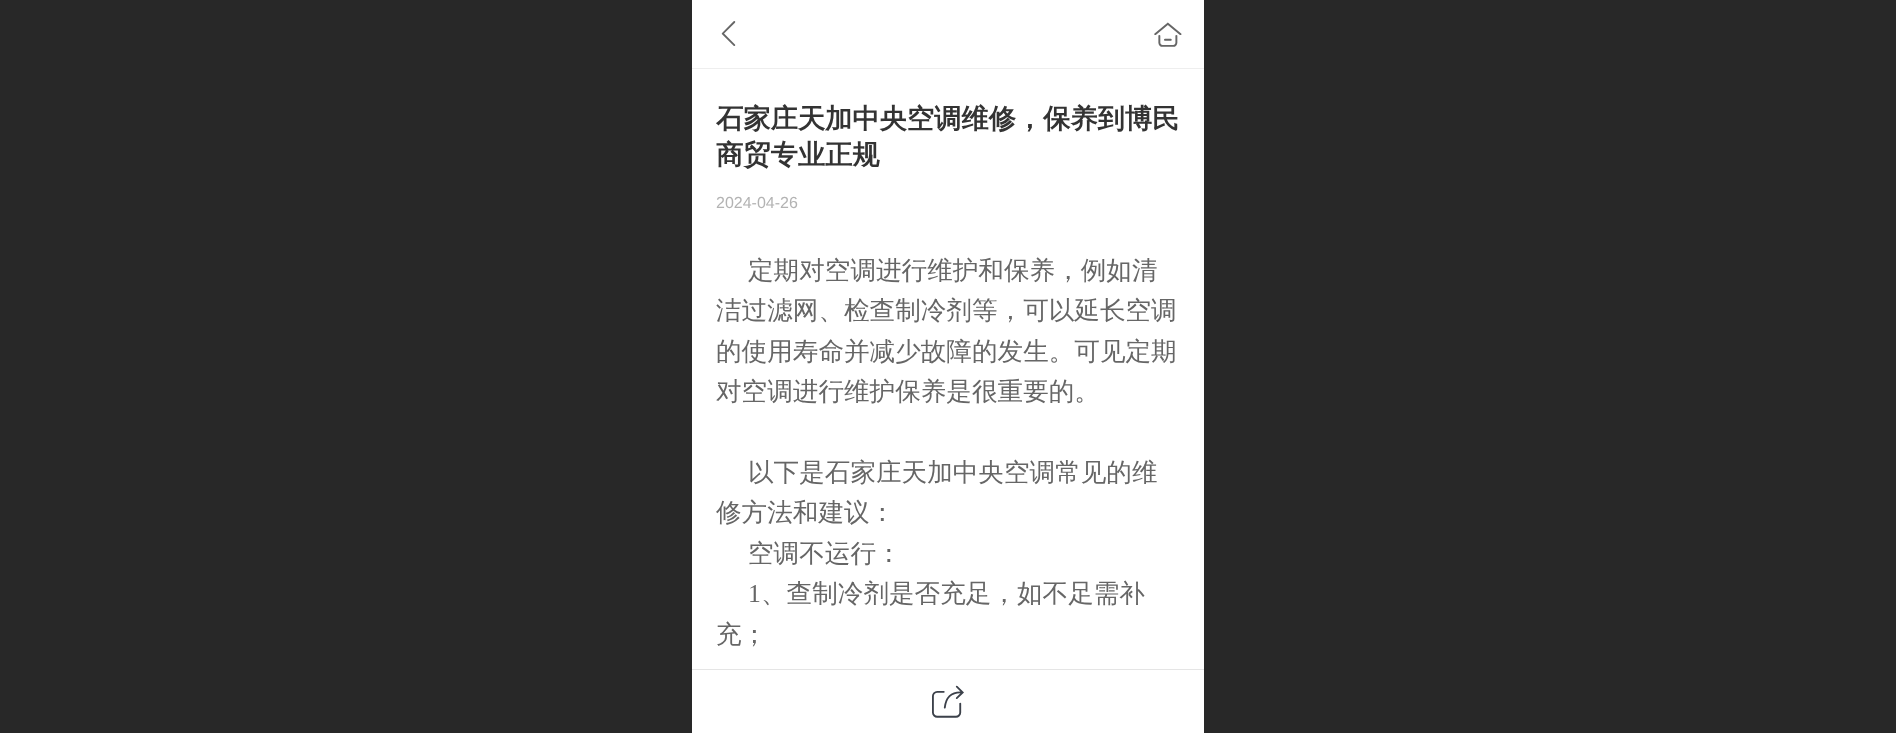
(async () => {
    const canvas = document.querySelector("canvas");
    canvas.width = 1896;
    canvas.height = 733;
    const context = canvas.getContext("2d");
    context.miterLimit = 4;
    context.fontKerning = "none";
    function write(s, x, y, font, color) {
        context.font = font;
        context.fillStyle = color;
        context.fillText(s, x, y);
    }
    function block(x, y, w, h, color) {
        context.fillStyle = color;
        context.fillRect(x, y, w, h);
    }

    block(0, 0, 1896, 733, "rgb(255, 255, 255)");
    block(0, 0, 692, 733, "rgb(40, 40, 40)");
    block(692, 68, 512, 1, "rgb(238, 238, 238)");
    write("򰊔", 716, 44, "25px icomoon", "rgb(102, 102, 102)");
    write("򰌓", 1154, 46, "27.25px icomoon", "rgb(102, 102, 102)");
    write("石家庄天加中央空调维修，保养到博民", 716, 128, "bold 27.25px WenQuanYi Zen Hei", "rgb(51, 51, 51)");
    write("商贸专业正规", 716, 164, "bold 27.25px WenQuanYi Zen Hei", "rgb(51, 51, 51)");
    write("2024-04-26", 716, 208, "16px Liberation Sans", "rgb(179, 179, 179)");
    write("定期对空调进行维护和保养，例如清", 748, 279, "500 25.6px WenQuanYi Zen Hei", "rgb(102, 102, 102)");
    write("洁过滤网、检查制冷剂等，可以延长空调", 716, 319, "500 25.6px WenQuanYi Zen Hei", "rgb(102, 102, 102)");
    write("的使用寿命并减少故障的发生。可见定期", 716, 360, "500 25.6px WenQuanYi Zen Hei", "rgb(102, 102, 102)");
    write("对空调进行维护保养是很重要的。", 716, 400, "500 25.6px WenQuanYi Zen Hei", "rgb(102, 102, 102)");
    write("以下是石家庄天加中央空调常见的维", 748, 481, "500 25.6px WenQuanYi Zen Hei", "rgb(102, 102, 102)");
    write("修方法和建议：", 716, 521, "500 25.6px WenQuanYi Zen Hei", "rgb(102, 102, 102)");
    write("空调不运行：", 748, 562, "500 25.6px WenQuanYi Zen Hei", "rgb(102, 102, 102)");
    write("1", 748, 602, "25.6px Liberation Serif", "rgb(102, 102, 102)");
    write("、查制冷剂是否充足，如不足需补", 761, 602, "500 25.6px WenQuanYi Zen Hei", "rgb(102, 102, 102)");
    write("充；", 716, 643, "500 25.6px WenQuanYi Zen Hei", "rgb(102, 102, 102)");
    block(692, 669, 512, 1, "rgb(229, 229, 229)");
    write("򰌐", 932, 715, "32px icomoon", "rgb(60, 65, 74)");
    block(1204, 0, 692, 733, "rgb(40, 40, 40)");
})();
